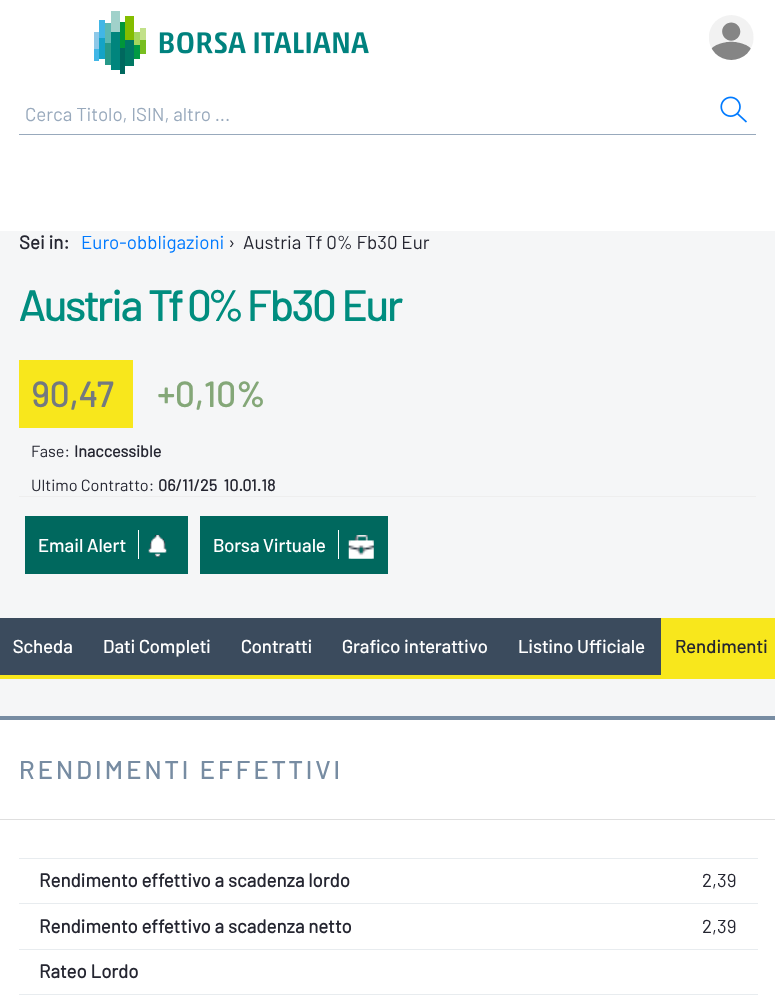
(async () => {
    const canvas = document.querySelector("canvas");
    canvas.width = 775;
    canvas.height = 1008;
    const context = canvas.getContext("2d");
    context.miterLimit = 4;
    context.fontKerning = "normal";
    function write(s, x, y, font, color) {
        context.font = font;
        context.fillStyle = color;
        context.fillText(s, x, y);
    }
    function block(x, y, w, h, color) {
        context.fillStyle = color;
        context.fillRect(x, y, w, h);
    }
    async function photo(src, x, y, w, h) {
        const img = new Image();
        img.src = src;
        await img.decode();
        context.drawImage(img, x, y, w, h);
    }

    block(0, 0, 775, 1008, "rgb(255, 255, 255)");
    await photo("media/1.png", 94, 11, 275, 63);
    await photo("media/2.png", 709, 15, 45, 45);
    block(19, 134, 737, 1, "rgb(152, 169, 188)");
    write("Cerca Titolo, ISIN, altro ...", 25, 121, "18.75px Barlow", "rgb(152, 169, 188)");
    await photo("media/3.png", 720, 96, 27, 27);
    block(0, 231, 775, 485, "rgb(245, 246, 247)");
    write("Sei in:", 19, 249, "bold 18.75px Barlow", "rgb(37, 38, 49)");
    write("Euro-obbligazioni", 81, 249, "18.75px Barlow", "rgb(0, 122, 255)");
    write("›", 228, 249, "18.75px Barlow", "rgb(37, 38, 49)");
    write("Austria Tf 0% Fb30 Eur", 243, 249, "18.75px Barlow", "rgb(37, 38, 49)");
    context.letterSpacing = "-1.9px";
    write("Austria Tf 0% Fb30 Eur", 19, 321, "500 44px Barlow", "rgb(0, 141, 127)");
    block(19, 360, 114, 68, "rgb(248, 231, 28)");
    context.letterSpacing = "0px";
    write("90,47", 31, 407, "bold 35px Barlow", "rgb(115, 121, 128)");
    write("+0,10%", 157, 407, "bold 35px Barlow", "rgb(132, 167, 120)");
    write("Fase:", 31, 457, "16.25px Barlow", "rgb(37, 38, 49)");
    write("Inaccessible", 74, 457, "bold 16.25px Barlow", "rgb(37, 38, 49)");
    write("Ultimo Contratto:", 31, 491, "16.25px Barlow", "rgb(37, 38, 49)");
    write("06/11/25  10.01.18", 158, 491, "bold 16.25px Barlow", "rgb(37, 38, 49)");
    block(19, 496, 737, 1, "rgb(238, 238, 238)");
    block(25, 516, 163, 58, "rgb(0, 104, 94)");
    write("Email Alert", 38, 552, "500 18.75px Barlow", "rgb(255, 255, 255)");
    block(138, 530, 1, 29, "rgb(255, 255, 255)");
    await photo("media/4.png", 148, 535, 19, 23);
    block(200, 516, 188, 58, "rgb(0, 104, 94)");
    write("Borsa Virtuale", 213, 552, "500 18.75px Barlow", "rgb(255, 255, 255)");
    block(338, 530, 1, 29, "rgb(255, 255, 255)");
    await photo("media/5.png", 348, 535, 26, 24);
    block(0, 618, 661, 57, "rgb(59, 75, 93)");
    block(0, 675, 775, 4, "rgb(248, 231, 28)");
    write("Scheda", 13, 653, "500 18.75px Barlow", "rgb(255, 255, 255)");
    write("Dati Completi", 103, 653, "500 18.75px Barlow", "rgb(255, 255, 255)");
    write("Contratti", 241, 653, "500 18.75px Barlow", "rgb(255, 255, 255)");
    write("Grafico interattivo", 342, 653, "500 18.75px Barlow", "rgb(255, 255, 255)");
    write("Listino Ufficiale", 518, 653, "500 18.75px Barlow", "rgb(255, 255, 255)");
    block(661, 618, 114, 57, "rgb(248, 231, 28)");
    write("Rendimenti", 675, 653, "500 18.75px Barlow", "rgb(37, 38, 49)");
    block(0, 716, 775, 4, "rgb(119, 140, 162)");
    block(0, 819, 775, 1, "rgb(223, 223, 223)");
    context.letterSpacing = "3.2px";
    write("RENDIMENTI EFFETTIVI", 19, 779, "500 25.75px Barlow", "rgb(119, 140, 162)");
    block(19, 858, 739, 1, "rgb(232, 236, 239)");
    context.letterSpacing = "0px";
    write("Rendimento effettivo a scadenza lordo", 39, 887, "bold 18.75px Barlow", "rgb(37, 38, 49)");
    write("2,39", 702, 887, "18.75px Barlow", "rgb(37, 38, 49)");
    block(19, 903, 739, 1, "rgb(232, 236, 239)");
    write("Rendimento effettivo a scadenza netto", 39, 933, "bold 18.75px Barlow", "rgb(37, 38, 49)");
    write("2,39", 702, 933, "18.75px Barlow", "rgb(37, 38, 49)");
    block(19, 949, 739, 1, "rgb(232, 236, 239)");
    write("Rateo Lordo", 39, 978, "bold 18.75px Barlow", "rgb(37, 38, 49)");
    block(19, 994, 739, 1, "rgb(232, 236, 239)");
})();
